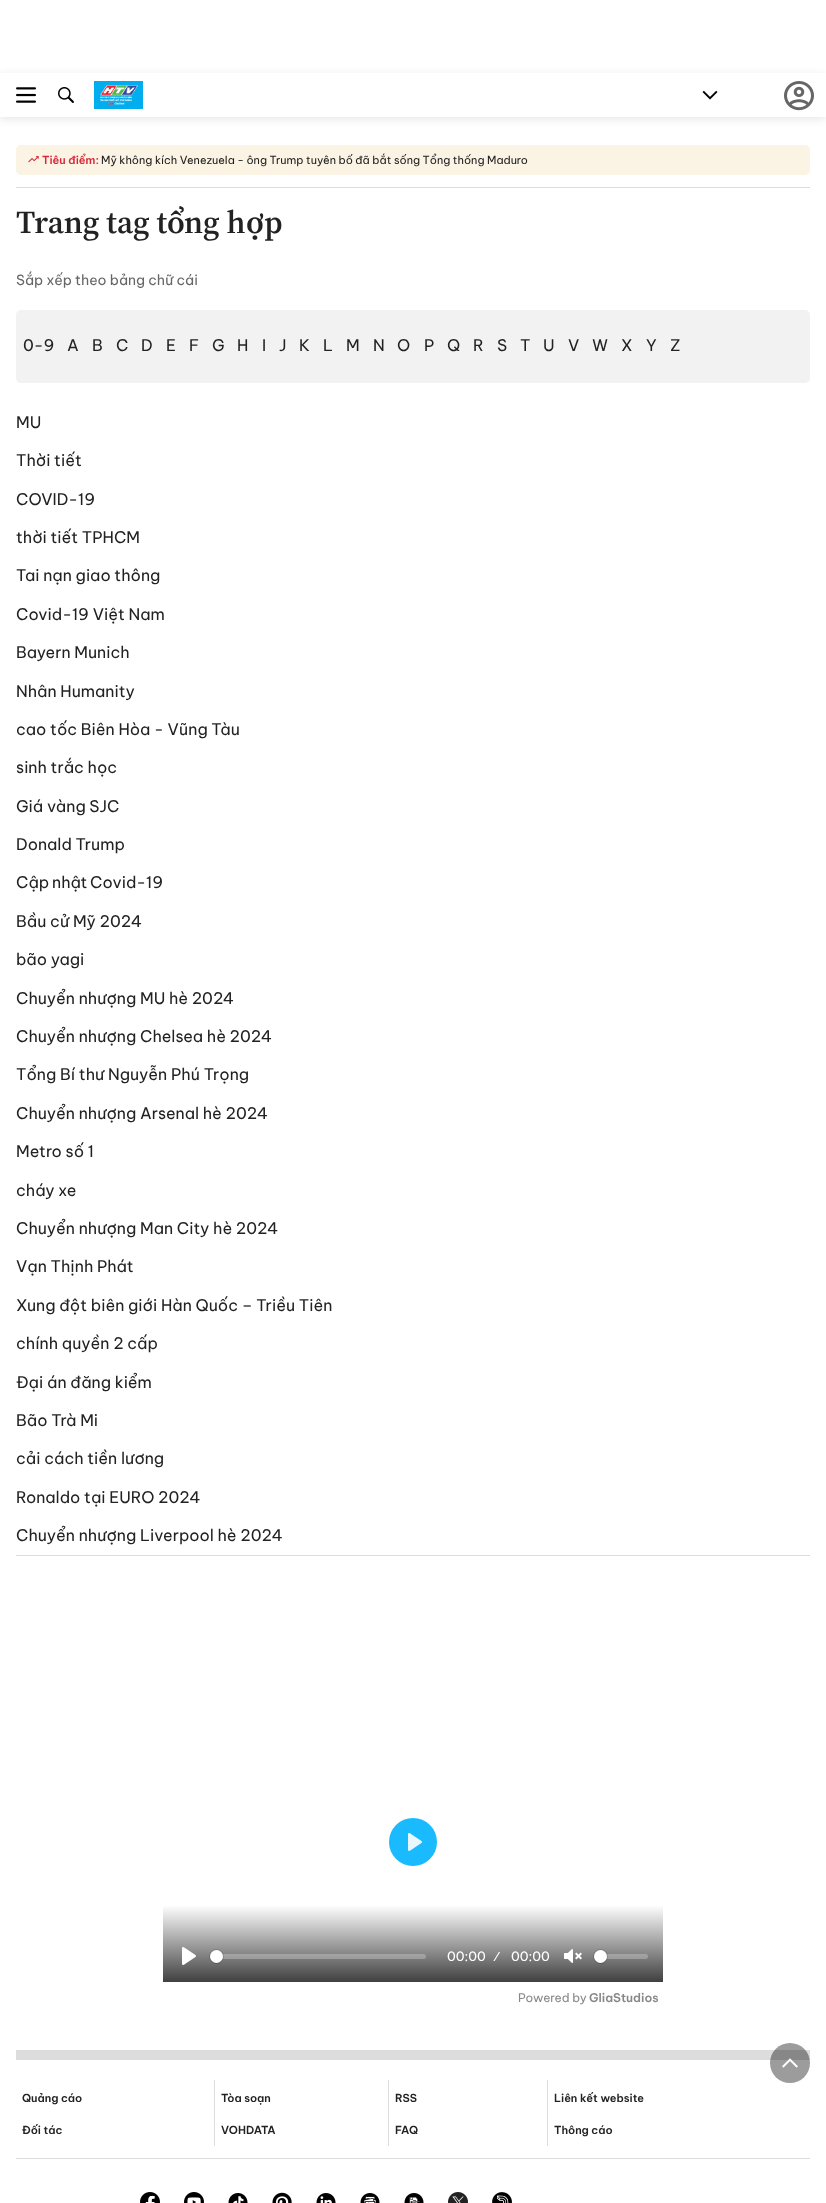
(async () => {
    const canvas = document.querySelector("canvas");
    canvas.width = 826;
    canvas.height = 2203;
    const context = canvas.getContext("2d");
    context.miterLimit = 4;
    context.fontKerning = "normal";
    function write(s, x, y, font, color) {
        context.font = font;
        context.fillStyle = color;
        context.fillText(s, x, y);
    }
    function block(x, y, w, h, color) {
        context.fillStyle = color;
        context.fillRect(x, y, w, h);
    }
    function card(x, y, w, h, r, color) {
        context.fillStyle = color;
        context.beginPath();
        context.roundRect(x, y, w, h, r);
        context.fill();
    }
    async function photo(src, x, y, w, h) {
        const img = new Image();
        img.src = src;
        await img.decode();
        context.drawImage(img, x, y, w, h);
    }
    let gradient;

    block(0, 0, 826, 2203, "rgb(255, 255, 255)");
    context.save();
    context.beginPath();
    context.moveTo(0, 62);
    context.lineTo(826, 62);
    context.lineTo(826, 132);
    context.lineTo(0, 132);
    context.closePath();
    context.moveTo(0, 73);
    context.lineTo(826, 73);
    context.lineTo(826, 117);
    context.lineTo(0, 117);
    context.closePath();
    context.clip("evenodd");
    context.fillStyle = "rgba(0, 0, 0, 0.1)";
    context.filter = "blur(4px)";
    context.beginPath();
    context.rect(0, 75, 826, 44);
    context.fill();
    context.filter = "none";
    context.restore();
    await photo("media/1.png", 16, 87, 20, 16);
    await photo("media/2.png", 58, 87, 16, 16);
    await photo("media/3.png", 94, 81, 49, 28);
    await photo("media/4.png", 702, 90, 16, 10);
    await photo("media/5.png", 784, 81, 30, 30);
    block(16, 187, 794, 1, "rgb(221, 221, 221)");
    card(16, 145, 794, 30, 5, "rgb(251, 243, 228)");
    await photo("media/6.png", 28, 156, 11, 7);
    write("Tiêu điểm:", 42, 164, "600 11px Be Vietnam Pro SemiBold", "rgb(216, 41, 58)");
    write("Mỹ không kích Venezuela - ông Trump tuyên bố đã bắt sống Tổng thống Maduro", 101, 164, "11px Be Vietnam Pro", "rgb(34, 34, 34)");
    write("Trang tag t", 16, 233, "600 32px 'Source Serif 4'", "rgb(34, 34, 34)");
    write("ổ", 167, 233, "600 32px 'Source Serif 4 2'", "rgb(34, 34, 34)");
    write("ng h", 184, 233, "600 32px 'Source Serif 4'", "rgb(34, 34, 34)");
    write("ợ", 246, 233, "600 32px 'Source Serif 4 2'", "rgb(34, 34, 34)");
    write("p", 264, 233, "600 32px 'Source Serif 4'", "rgb(34, 34, 34)");
    write("Sắp xếp theo bảng chữ cái", 16, 285, "14px Be Vietnam Pro", "rgb(102, 102, 102)");
    card(16, 310, 794, 73, 5, "rgb(242, 242, 242)");
    context.save();
    context.beginPath();
    context.roundRect(16, 310, 794, 73, 5);
    context.clip();
    block(16, 381, 44, 2, "rgb(242, 242, 242)");
    context.restore();
    write("0-9", 23, 351, "16px Be Vietnam Pro", "rgb(34, 34, 34)");
    write("A", 67, 351, "16px Be Vietnam Pro", "rgb(34, 34, 34)");
    write("B", 92, 351, "16px Be Vietnam Pro", "rgb(34, 34, 34)");
    write("C", 116, 351, "16px Be Vietnam Pro", "rgb(34, 34, 34)");
    write("D", 141, 351, "16px Be Vietnam Pro", "rgb(34, 34, 34)");
    write("E", 166, 351, "16px Be Vietnam Pro", "rgb(34, 34, 34)");
    write("F", 189, 351, "16px Be Vietnam Pro", "rgb(34, 34, 34)");
    write("G", 212, 351, "16px Be Vietnam Pro", "rgb(34, 34, 34)");
    write("H", 237, 351, "16px Be Vietnam Pro", "rgb(34, 34, 34)");
    write("I", 262, 351, "16px Be Vietnam Pro", "rgb(34, 34, 34)");
    write("J", 279, 351, "16px Be Vietnam Pro", "rgb(34, 34, 34)");
    write("K", 299, 351, "16px Be Vietnam Pro", "rgb(34, 34, 34)");
    write("L", 323, 351, "16px Be Vietnam Pro", "rgb(34, 34, 34)");
    write("M", 346, 351, "16px Be Vietnam Pro", "rgb(34, 34, 34)");
    write("N", 373, 351, "16px Be Vietnam Pro", "rgb(34, 34, 34)");
    write("O", 397, 351, "16px Be Vietnam Pro", "rgb(34, 34, 34)");
    write("P", 424, 351, "16px Be Vietnam Pro", "rgb(34, 34, 34)");
    write("Q", 447, 351, "16px Be Vietnam Pro", "rgb(34, 34, 34)");
    write("R", 473, 351, "16px Be Vietnam Pro", "rgb(34, 34, 34)");
    write("S", 497, 351, "16px Be Vietnam Pro", "rgb(34, 34, 34)");
    write("T", 520, 351, "16px Be Vietnam Pro", "rgb(34, 34, 34)");
    write("U", 543, 351, "16px Be Vietnam Pro", "rgb(34, 34, 34)");
    write("V", 568, 351, "16px Be Vietnam Pro", "rgb(34, 34, 34)");
    write("W", 592, 351, "16px Be Vietnam Pro", "rgb(34, 34, 34)");
    write("X", 621, 351, "16px Be Vietnam Pro", "rgb(34, 34, 34)");
    write("Y", 646, 351, "16px Be Vietnam Pro", "rgb(34, 34, 34)");
    write("Z", 670, 351, "16px Be Vietnam Pro", "rgb(34, 34, 34)");
    write("MU", 16, 428, "16px Be Vietnam Pro", "rgb(34, 34, 34)");
    write("Thời tiết", 16, 466, "16px Be Vietnam Pro", "rgb(34, 34, 34)");
    write("COVID-19", 16, 505, "16px Be Vietnam Pro", "rgb(34, 34, 34)");
    write("thời tiết TPHCM", 16, 543, "16px Be Vietnam Pro", "rgb(34, 34, 34)");
    write("Tai nạn giao thông", 16, 581, "16px Be Vietnam Pro", "rgb(34, 34, 34)");
    write("Covid-19 Việt Nam", 16, 620, "16px Be Vietnam Pro", "rgb(34, 34, 34)");
    write("Bayern Munich", 16, 658, "16px Be Vietnam Pro", "rgb(34, 34, 34)");
    write("Nhân Humanity", 16, 697, "16px Be Vietnam Pro", "rgb(34, 34, 34)");
    write("cao tốc Biên Hòa - Vũng Tàu", 16, 735, "16px Be Vietnam Pro", "rgb(34, 34, 34)");
    write("sinh trắc học", 16, 773, "16px Be Vietnam Pro", "rgb(34, 34, 34)");
    write("Giá vàng SJC", 16, 812, "16px Be Vietnam Pro", "rgb(34, 34, 34)");
    write("Donald Trump", 16, 850, "16px Be Vietnam Pro", "rgb(34, 34, 34)");
    context.wordSpacing = "-1px";
    write("Cập nhật Covid-19", 16, 888, "16px Be Vietnam Pro", "rgb(34, 34, 34)");
    context.wordSpacing = "0px";
    write("Bầu cử Mỹ 2024", 16, 927, "16px Be Vietnam Pro", "rgb(34, 34, 34)");
    write("bão yagi", 16, 965, "16px Be Vietnam Pro", "rgb(34, 34, 34)");
    write("Chuyển nhượng MU hè 2024", 16, 1004, "16px Be Vietnam Pro", "rgb(34, 34, 34)");
    write("Chuyển nhượng Chelsea hè 2024", 16, 1042, "16px Be Vietnam Pro", "rgb(34, 34, 34)");
    write("Tổng Bí thư Nguyễn Phú Trọng", 16, 1080, "16px Be Vietnam Pro", "rgb(34, 34, 34)");
    write("Chuyển nhượng Arsenal hè 2024", 16, 1119, "16px Be Vietnam Pro", "rgb(34, 34, 34)");
    write("Metro số 1", 16, 1157, "16px Be Vietnam Pro", "rgb(34, 34, 34)");
    write("cháy xe", 16, 1196, "16px Be Vietnam Pro", "rgb(34, 34, 34)");
    write("Chuyển nhượng Man City hè 2024", 16, 1234, "16px Be Vietnam Pro", "rgb(34, 34, 34)");
    write("Vạn Thịnh Phát", 16, 1272, "16px Be Vietnam Pro", "rgb(34, 34, 34)");
    write("Xung đột biên giới Hàn Quốc – Triều Tiên", 16, 1311, "16px Be Vietnam Pro", "rgb(34, 34, 34)");
    write("chính quyền 2 cấp", 16, 1349, "16px Be Vietnam Pro", "rgb(34, 34, 34)");
    write("Đại án đăng kiểm", 16, 1388, "16px Be Vietnam Pro", "rgb(34, 34, 34)");
    write("Bão Trà Mi", 16, 1426, "16px Be Vietnam Pro", "rgb(34, 34, 34)");
    write("cải cách tiền lương", 16, 1464, "16px Be Vietnam Pro", "rgb(34, 34, 34)");
    write("Ronaldo tại EURO 2024", 16, 1503, "16px Be Vietnam Pro", "rgb(34, 34, 34)");
    write("Chuyển nhượng Liverpool hè 2024", 16, 1541, "16px Be Vietnam Pro", "rgb(34, 34, 34)");
    block(16, 1555, 794, 1, "rgb(221, 221, 221)");
    context.fillStyle = "rgb(26, 186, 255)";
    context.beginPath();
    context.arc(413, 1842, 24, 0, Math.PI * 2);
    context.fill();
    await photo("media/7.png", 408, 1833, 14, 18);
    gradient = context.createLinearGradient(413, 1905, 413, 1982);
    gradient.addColorStop(0, "rgb(255, 255, 255)");
    gradient.addColorStop(1, "rgb(64, 64, 64)");
    context.fillStyle = gradient;
    context.fillRect(163, 1906, 500, 76);
    await photo("media/8.png", 182, 1947, 14, 18);
    card(210, 1954, 216, 5, 2.5, "rgba(255, 255, 255, 0.25)");
    context.beginPath();
    context.arc(216.5, 1956.5, 7, 0, Math.PI * 2);
    context.strokeStyle = "rgba(35, 40, 47, 0.2)";
    context.stroke();
    context.fillStyle = "rgba(35, 40, 47, 0.15)";
    context.filter = "blur(0.5px)";
    context.beginPath();
    context.roundRect(210, 1951, 13, 13, 6.5);
    context.fill();
    context.filter = "none";
    context.fillStyle = "rgb(255, 255, 255)";
    context.beginPath();
    context.arc(216.5, 1956.5, 6.5, 0, Math.PI * 2);
    context.fill();
    write("00:00", 447, 1961, "13px Be Vietnam Pro", "rgb(255, 255, 255)");
    write("⁄", 493, 1961, "13px Be Vietnam Pro", "rgb(255, 255, 255)");
    write("00:00", 511, 1961, "13px Be Vietnam Pro", "rgb(255, 255, 255)");
    await photo("media/9.png", 564, 1949, 18, 14);
    card(594, 1954, 54, 5, 2.5, "rgba(255, 255, 255, 0.25)");
    context.beginPath();
    context.arc(600.5, 1956.5, 7, 0, Math.PI * 2);
    context.stroke();
    context.fillStyle = "rgba(35, 40, 47, 0.15)";
    context.filter = "blur(0.5px)";
    context.beginPath();
    context.roundRect(594, 1951, 13, 13, 6.5);
    context.fill();
    context.filter = "none";
    context.fillStyle = "rgb(255, 255, 255)";
    context.beginPath();
    context.arc(600.5, 1956.5, 6.5, 0, Math.PI * 2);
    context.fill();
    write("Powered by", 518, 2002, "12px Be Vietnam Pro", "rgb(136, 136, 136)");
    write("GliaStudios", 589, 2002, "600 12px Be Vietnam Pro SemiBold", "rgb(136, 136, 136)");
    block(16, 2050, 794, 10, "rgb(221, 221, 221)");
    context.fillStyle = "rgba(0, 0, 0, 0.39)";
    context.beginPath();
    context.arc(790, 2063, 20, 0, Math.PI * 2);
    context.fill();
    await photo("media/10.png", 782, 2058, 16, 10);
    block(214, 2080, 1, 66, "rgb(221, 221, 221)");
    write("Quảng cáo", 22, 2102, "600 11px Be Vietnam Pro SemiBold", "rgb(34, 34, 34)");
    write("Đối tác", 22, 2134, "600 11px Be Vietnam Pro SemiBold", "rgb(34, 34, 34)");
    block(388, 2080, 1, 66, "rgb(221, 221, 221)");
    write("Tòa soạn", 221, 2102, "600 11px Be Vietnam Pro SemiBold", "rgb(34, 34, 34)");
    write("VOHDATA", 221, 2134, "600 11px Be Vietnam Pro SemiBold", "rgb(34, 34, 34)");
    block(547, 2080, 1, 66, "rgb(221, 221, 221)");
    write("RSS", 395, 2102, "600 11px Be Vietnam Pro SemiBold", "rgb(34, 34, 34)");
    write("FAQ", 395, 2134, "600 11px Be Vietnam Pro SemiBold", "rgb(34, 34, 34)");
    write("Liên kết website", 554, 2102, "600 11px Be Vietnam Pro SemiBold", "rgb(34, 34, 34)");
    write("Thông cáo", 554, 2134, "600 11px Be Vietnam Pro SemiBold", "rgb(34, 34, 34)");
    block(16, 2158, 794, 1, "rgb(221, 221, 221)");
    await photo("media/11.png", 140, 2192, 20, 11);
    await photo("media/12.png", 184, 2192, 20, 11);
    await photo("media/13.png", 228, 2193, 20, 10);
    await photo("media/14.png", 272, 2192, 20, 11);
    await photo("media/15.png", 316, 2193, 20, 10);
    await photo("media/16.png", 360, 2193, 20, 10);
    await photo("media/17.png", 404, 2193, 20, 10);
    await photo("media/18.png", 448, 2192, 20, 11);
    await photo("media/19.png", 492, 2192, 20, 11);
})();
